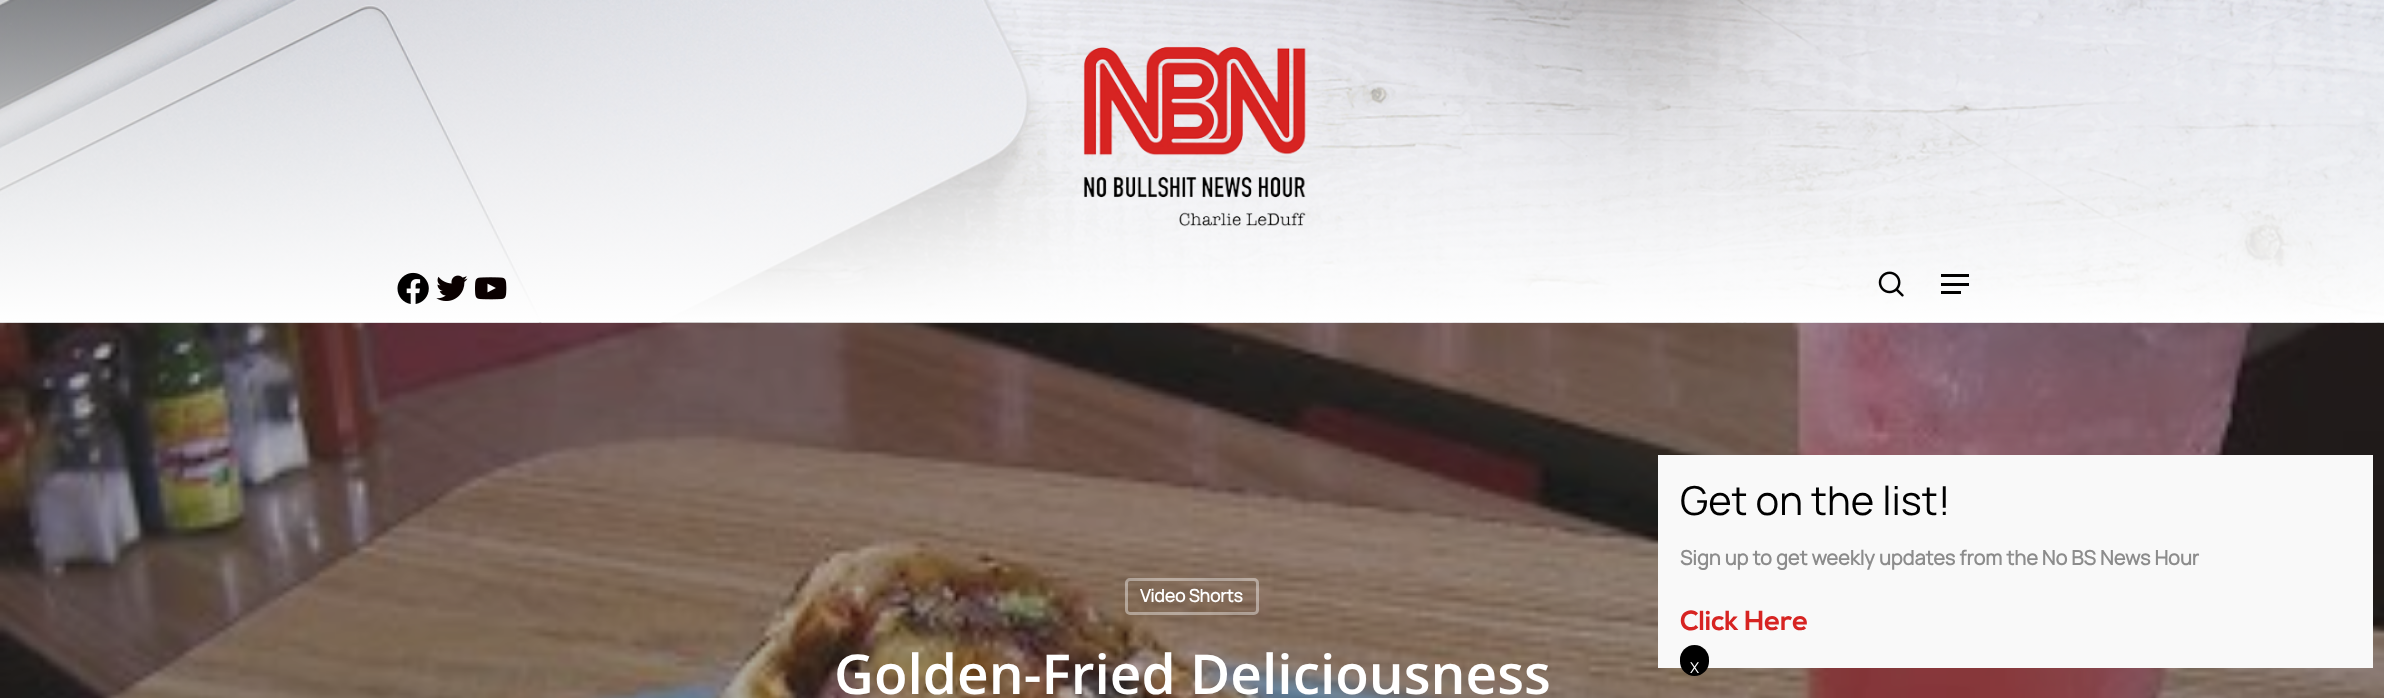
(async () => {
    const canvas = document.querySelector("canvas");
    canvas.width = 2384;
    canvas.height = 698;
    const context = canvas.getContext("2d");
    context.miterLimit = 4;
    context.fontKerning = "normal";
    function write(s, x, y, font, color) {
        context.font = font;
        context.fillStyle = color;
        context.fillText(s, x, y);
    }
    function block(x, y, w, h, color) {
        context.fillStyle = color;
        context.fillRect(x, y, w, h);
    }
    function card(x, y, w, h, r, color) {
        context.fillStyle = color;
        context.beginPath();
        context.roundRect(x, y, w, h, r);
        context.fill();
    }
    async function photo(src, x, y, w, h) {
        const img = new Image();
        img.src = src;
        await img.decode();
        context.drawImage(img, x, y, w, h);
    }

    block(0, 0, 2384, 698, "rgb(255, 255, 255)");
    await photo("media/7.png", 0, 322, 2384, 376);
    await photo("media/1.png", 0, 0, 2384, 323);
    await photo("media/2.png", 1083, 46, 223, 181);
    await photo("media/3.png", 397, 272, 32, 32);
    await photo("media/4.png", 436, 275, 32, 26);
    await photo("media/5.png", 475, 277, 32, 23);
    await photo("media/6.png", 1878, 271, 26, 26);
    block(1941, 274, 28, 3, "rgb(0, 0, 0)");
    block(1941, 291, 20, 3, "rgb(0, 0, 0)");
    block(1941, 283, 28, 3, "rgb(0, 0, 0)");
    context.beginPath();
    context.roundRect(1126.5, 579.5, 131, 34, 3.5);
    context.strokeStyle = "rgba(255, 255, 255, 0.4)";
    context.lineWidth = 3;
    context.stroke();
    write("Video Shorts", 1140, 602, "bold 17.5px Manrope", "rgb(255, 255, 255)");
    write("Golden-Fried Deliciousness", 834, 694, "600 55px Open Sans", "rgb(255, 255, 255)");
    block(1658, 455, 715, 213, "rgb(249, 249, 249)");
    write("Get on the list!", 1680, 515, "200 40px Manrope", "rgb(0, 0, 0)");
    write("Sign up to get weekly updates from the No BS News Hour", 1680, 565, "bold 20px Manrope", "rgb(140, 140, 140)");
    write("Click Here", 1680, 630, "bold 27.5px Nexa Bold", "rgb(215, 36, 34)");
    card(1680, 645, 29, 31, 14.5, "rgb(0, 0, 0)");
    write("X", 1690, 673, "200 15px Manrope", "rgb(255, 255, 255)");
})();
